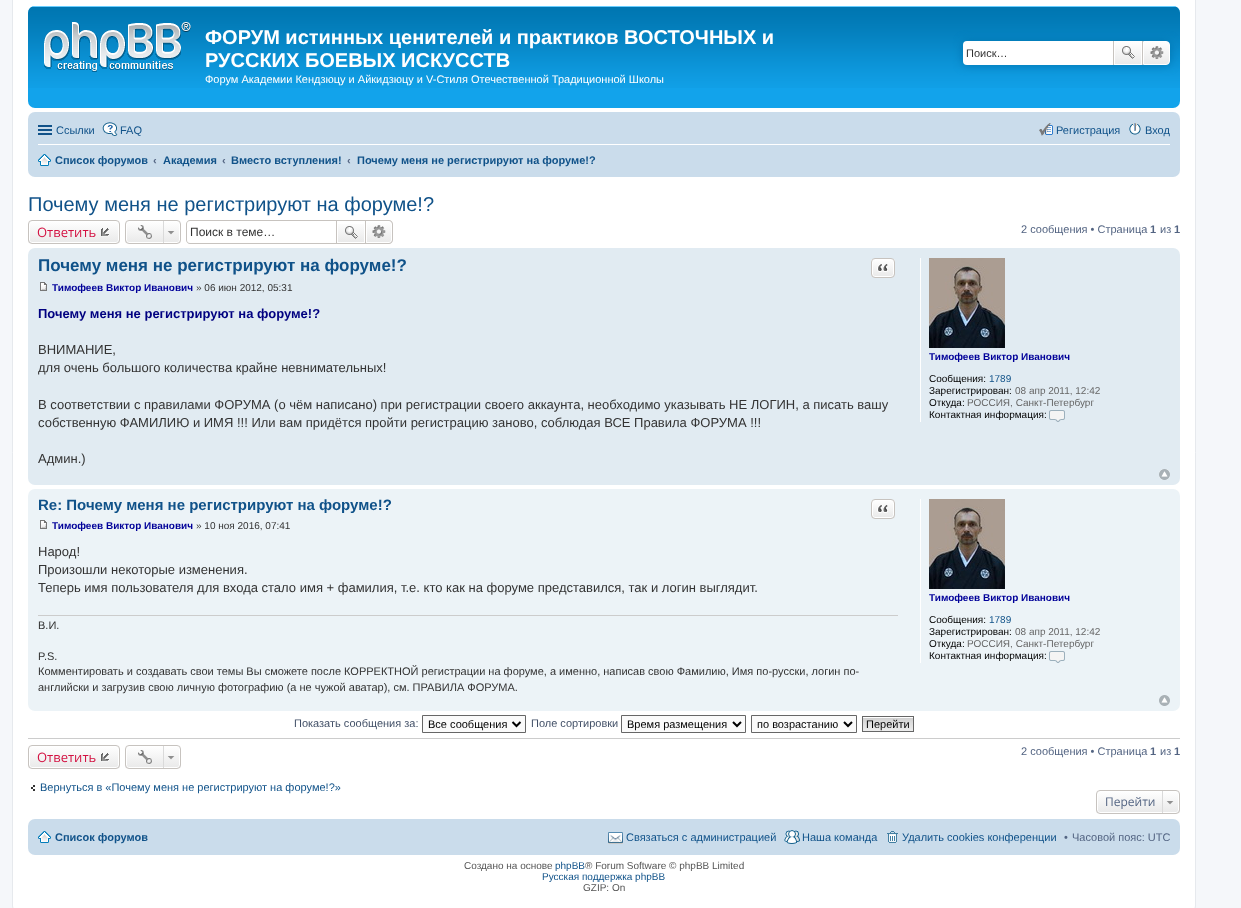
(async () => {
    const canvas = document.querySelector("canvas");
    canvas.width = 1241;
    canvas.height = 908;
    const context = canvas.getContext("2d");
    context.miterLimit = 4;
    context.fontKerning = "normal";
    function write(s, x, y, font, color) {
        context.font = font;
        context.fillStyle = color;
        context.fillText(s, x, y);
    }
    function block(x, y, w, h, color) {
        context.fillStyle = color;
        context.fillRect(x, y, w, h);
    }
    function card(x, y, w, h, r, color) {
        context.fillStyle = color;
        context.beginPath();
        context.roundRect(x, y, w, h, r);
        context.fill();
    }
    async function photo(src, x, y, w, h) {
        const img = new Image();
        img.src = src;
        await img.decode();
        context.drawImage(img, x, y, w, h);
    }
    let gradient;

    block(0, 0, 1241, 908, "rgb(245, 247, 250)");
    context.fillStyle = "rgb(255, 255, 255)";
    context.beginPath();
    context.roundRect(12.5, -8.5, 1183, 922, 7.5);
    context.fill();
    context.strokeStyle = "rgb(230, 233, 237)";
    context.stroke();
    card(28, 6, 1152, 102, 7, "rgb(18, 163, 235)");
    await photo("media/1.png", 28, 6, 1152, 82);
    await photo("media/2.png", 44, 22, 147, 50);
    write("ФОРУМ истинных ценителей и практиков ВОСТОЧНЫХ и", 205, 44, "bold 20px Liberation Sans", "rgb(255, 255, 255)");
    write("РУССКИХ БОЕВЫХ ИСКУССТВ", 205, 67, "bold 20px Liberation Sans", "rgb(255, 255, 255)");
    write("Форум Академии Кендзюцу и Айкидзюцу и V-Стиля Отечественной Традиционной Школы", 205, 83, "11px Liberation Sans", "rgb(255, 255, 255)");
    context.fillStyle = "rgb(0, 117, 176)";
    context.filter = "blur(5px)";
    context.beginPath();
    context.roundRect(963, 41, 207, 24, 4);
    context.fill();
    context.filter = "none";
    context.fillStyle = "rgb(255, 255, 255)";
    context.beginPath();
    context.roundRect(963, 41, 150, 24, [4, 0, 0, 4]);
    context.fill();
    write("Поиск…", 966, 57, "11px Liberation Sans", "rgb(51, 51, 51)");
    gradient = context.createLinearGradient(1128, 41, 1128, 65);
    gradient.addColorStop(0, "rgb(255, 255, 255)");
    gradient.addColorStop(1, "rgb(233, 233, 233)");
    context.fillStyle = gradient;
    context.fillRect(1115, 42, 26, 22);
    context.strokeStyle = "rgb(255, 255, 255)";
    context.strokeRect(1114.5, 41.5, 27, 23);
    block(1142, 41, 1, 24, "rgb(199, 195, 191)");
    block(1113, 41, 1, 24, "rgb(199, 195, 191)");
    await photo("media/3.png", 1122, 46, 13, 13);
    gradient = context.createLinearGradient(1157, 41, 1157, 65);
    gradient.addColorStop(0, "rgb(255, 255, 255)");
    gradient.addColorStop(1, "rgb(233, 233, 233)");
    context.fillStyle = gradient;
    context.beginPath();
    context.roundRect(1143.5, 41.5, 26, 23, [0, 3.5, 3.5, 0]);
    context.fill();
    context.stroke();
    await photo("media/4.png", 1150, 46, 14, 13);
    card(28, 112, 1152, 65, 7, "rgb(202, 220, 235)");
    block(38, 125, 14, 2, "rgb(16, 82, 137)");
    block(38, 129, 14, 2, "rgb(16, 82, 137)");
    block(38, 133, 14, 2, "rgb(16, 82, 137)");
    write("Ссылки", 56, 134, "11px Liberation Sans", "rgb(16, 82, 137)");
    await photo("media/5.png", 102, 122, 16, 14);
    write("FAQ", 120, 134, "11px Liberation Sans", "rgb(16, 82, 137)");
    await photo("media/6.png", 1039, 123, 14, 13);
    write("Регистрация", 1056, 134, "11px Liberation Sans", "rgb(16, 82, 137)");
    await photo("media/7.png", 1129, 123, 12, 12);
    write("Вход", 1145, 134, "11px Liberation Sans", "rgb(16, 82, 137)");
    block(38, 144, 1132, 1, "rgb(255, 255, 255)");
    await photo("media/8.png", 38, 154, 13, 12);
    write("Список форумов", 55, 164, "bold 11px Liberation Sans", "rgb(16, 82, 137)");
    write("‹", 153, 164, "bold 11px Liberation Sans", "rgb(83, 100, 130)");
    write("Академия", 163, 164, "bold 11px Liberation Sans", "rgb(16, 82, 137)");
    write("‹", 222, 164, "bold 11px Liberation Sans", "rgb(83, 100, 130)");
    write("Вместо вступления!", 231, 164, "bold 11px Liberation Sans", "rgb(16, 82, 137)");
    write("‹", 347, 164, "bold 11px Liberation Sans", "rgb(83, 100, 130)");
    write("Почему меня не регистрируют на форуме!?", 357, 164, "bold 11px Liberation Sans", "rgb(16, 82, 137)");
    write("Почему меня не регистрируют на форуме!?", 28, 211, "20px Liberation Sans", "rgb(16, 82, 137)");
    context.save();
    context.beginPath();
    context.roundRect(28, 220, 92, 24, 4);
    context.clip();
    gradient = context.createLinearGradient(74, 221, 74, 243);
    gradient.addColorStop(0, "rgb(255, 255, 255)");
    gradient.addColorStop(1, "rgb(233, 233, 233)");
    context.fillStyle = gradient;
    context.fillRect(28, 221, 92, 22);
    context.restore();
    context.beginPath();
    context.roundRect(29.5, 221.5, 89, 21, 2.5);
    context.stroke();
    context.beginPath();
    context.roundRect(28.5, 220.5, 91, 23, 3.5);
    context.strokeStyle = "rgb(199, 195, 191)";
    context.stroke();
    write("Ответить", 37, 237, "13px Open Sans", "rgb(211, 17, 65)");
    await photo("media/9.png", 100, 228, 10, 9);
    context.save();
    context.beginPath();
    context.roundRect(125, 220, 56, 24, 4);
    context.clip();
    gradient = context.createLinearGradient(153, 221, 153, 243);
    gradient.addColorStop(0, "rgb(255, 255, 255)");
    gradient.addColorStop(1, "rgb(233, 233, 233)");
    context.fillStyle = gradient;
    context.fillRect(125, 221, 56, 22);
    context.restore();
    context.beginPath();
    context.roundRect(126.5, 221.5, 53, 21, 2.5);
    context.strokeStyle = "rgb(255, 255, 255)";
    context.stroke();
    context.beginPath();
    context.roundRect(125.5, 220.5, 55, 23, 3.5);
    context.strokeStyle = "rgb(199, 195, 191)";
    context.stroke();
    await photo("media/10.png", 138, 225, 14, 15);
    await photo("media/11.png", 167, 231, 8, 4);
    block(163, 221, 1, 22, "rgb(218, 218, 218)");
    context.fillStyle = "rgb(199, 195, 191)";
    context.beginPath();
    context.moveTo(190, 220);
    context.lineTo(336, 220);
    context.lineTo(336, 244);
    context.lineTo(190, 244);
    context.bezierCurveTo(188, 244, 186, 242, 186, 240);
    context.lineTo(186, 224);
    context.bezierCurveTo(186, 222, 188, 220, 190, 220);
    context.closePath();
    context.moveTo(190, 221);
    context.lineTo(336, 221);
    context.lineTo(336, 243);
    context.lineTo(190, 243);
    context.bezierCurveTo(188, 243, 187, 242, 187, 240);
    context.lineTo(187, 224);
    context.bezierCurveTo(187, 222, 188, 221, 190, 221);
    context.closePath();
    context.fill("evenodd");
    write("Поиск в теме…", 190, 236, "12px Liberation Sans", "rgb(51, 51, 51)");
    gradient = context.createLinearGradient(351, 221, 351, 243);
    gradient.addColorStop(0, "rgb(255, 255, 255)");
    gradient.addColorStop(1, "rgb(233, 233, 233)");
    context.fillStyle = gradient;
    context.fillRect(338, 224, 26, 18);
    context.strokeRect(336.5, 220.5, 29, 23);
    await photo("media/12.png", 345, 226, 13, 13);
    gradient = context.createLinearGradient(379, 221, 379, 243);
    gradient.addColorStop(0, "rgb(255, 255, 255)");
    gradient.addColorStop(1, "rgb(233, 233, 233)");
    context.fillStyle = gradient;
    context.beginPath();
    context.roundRect(366.5, 221.5, 25, 21, [0, 2.5, 2.5, 0]);
    context.fill();
    context.strokeStyle = "rgb(255, 255, 255)";
    context.stroke();
    context.fillStyle = "rgb(199, 195, 191)";
    context.beginPath();
    context.moveTo(366, 220);
    context.lineTo(389, 220);
    context.bezierCurveTo(391, 220, 393, 222, 393, 224);
    context.lineTo(393, 240);
    context.bezierCurveTo(393, 242, 391, 244, 389, 244);
    context.lineTo(366, 244);
    context.closePath();
    context.moveTo(366, 221);
    context.lineTo(389, 221);
    context.bezierCurveTo(390.5, 221, 392, 222.5, 392, 224);
    context.lineTo(392, 240);
    context.bezierCurveTo(392, 241.5, 390.5, 243, 389, 243);
    context.lineTo(366, 243);
    context.closePath();
    context.fill("evenodd");
    await photo("media/13.png", 372, 225, 14, 13);
    write("2 сообщения • Страница", 1021, 233, "11px Liberation Sans", "rgb(83, 100, 130)");
    write("1", 1150, 233, "bold 11px Liberation Sans", "rgb(83, 100, 130)");
    write("из", 1160, 233, "11px Liberation Sans", "rgb(83, 100, 130)");
    write("1", 1174, 233, "bold 11px Liberation Sans", "rgb(83, 100, 130)");
    card(28, 248, 1152, 237, 7, "rgb(225, 235, 242)");
    write("Почему меня не регистрируют на форуме!?", 38, 271, "bold 17px Liberation Sans", "rgb(16, 82, 137)");
    context.save();
    context.beginPath();
    context.roundRect(871, 258, 24, 20, 4);
    context.clip();
    gradient = context.createLinearGradient(883, 259, 883, 277);
    gradient.addColorStop(0, "rgb(255, 255, 255)");
    gradient.addColorStop(1, "rgb(233, 233, 233)");
    context.fillStyle = gradient;
    context.fillRect(871, 259, 24, 18);
    context.restore();
    context.beginPath();
    context.roundRect(872.5, 259.5, 21, 17, 2.5);
    context.stroke();
    context.beginPath();
    context.roundRect(871.5, 258.5, 23, 19, 3.5);
    context.strokeStyle = "rgb(199, 195, 191)";
    context.stroke();
    await photo("media/14.png", 877, 264, 11, 8);
    await photo("media/15.png", 40, 282, 7, 9);
    write("Тимофеев Виктор Иванович", 52, 291, "bold 10px Liberation Sans", "rgb(0, 0, 153)");
    write("» 06 июн 2012, 05:31", 196, 291, "10px Liberation Sans", "rgb(51, 51, 51)");
    write("Почему меня не регистрируют на форуме!?", 38, 318, "bold 13px Liberation Sans", "rgb(0, 0, 128)");
    write("ВНИМАНИЕ,", 38, 354, "13px Liberation Sans", "rgb(51, 51, 51)");
    write("для очень большого количества крайне невнимательных!", 38, 372, "13px Liberation Sans", "rgb(51, 51, 51)");
    write("В соответствии с правилами ФОРУМА (о чём написано) при регистрации своего аккаунта, необходимо указывать НЕ ЛОГИН, а писать вашу", 38, 409, "13px Liberation Sans", "rgb(51, 51, 51)");
    write("собственную ФАМИЛИЮ и ИМЯ !!! Или вам придётся пройти регистрацию заново, соблюдая ВСЕ Правила ФОРУМА !!!", 38, 427, "13px Liberation Sans", "rgb(51, 51, 51)");
    write("Админ.)", 38, 463, "13px Liberation Sans", "rgb(51, 51, 51)");
    block(920, 258, 1, 164, "rgb(255, 255, 255)");
    await photo("media/16.png", 929, 258, 76, 90);
    write("Тимофеев Виктор Иванович", 929, 360, "bold 10px Liberation Sans", "rgb(0, 0, 153)");
    write("Сообщения:", 929, 382, "10px Liberation Sans", "rgb(0, 0, 0)");
    write("1789", 989, 382, "10px Liberation Sans", "rgb(16, 82, 137)");
    write("Зарегистрирован:", 929, 394, "10px Liberation Sans", "rgb(0, 0, 0)");
    write("08 апр 2011, 12:42", 1015, 394, "10px Liberation Sans", "rgb(102, 102, 102)");
    write("Откуда:", 929, 406, "10px Liberation Sans", "rgb(0, 0, 0)");
    write("РОССИЯ, Санкт-Петербург", 967, 406, "10px Liberation Sans", "rgb(102, 102, 102)");
    write("Контактная информация:", 929, 418, "10px Liberation Sans", "rgb(0, 0, 0)");
    await photo("media/17.png", 1049, 410, 16, 12);
    await photo("media/18.png", 1159, 469, 11, 11);
    card(28, 489, 1152, 222, 7, "rgb(236, 243, 247)");
    write("Re: Почему меня не регистрируют на форуме!?", 38, 510, "bold 15px Liberation Sans", "rgb(16, 82, 137)");
    context.save();
    context.beginPath();
    context.roundRect(871, 499, 24, 20, 4);
    context.clip();
    gradient = context.createLinearGradient(883, 500, 883, 518);
    gradient.addColorStop(0, "rgb(255, 255, 255)");
    gradient.addColorStop(1, "rgb(233, 233, 233)");
    context.fillStyle = gradient;
    context.fillRect(871, 500, 24, 18);
    context.restore();
    context.beginPath();
    context.roundRect(872.5, 500.5, 21, 17, 2.5);
    context.strokeStyle = "rgb(255, 255, 255)";
    context.stroke();
    context.beginPath();
    context.roundRect(871.5, 499.5, 23, 19, 3.5);
    context.strokeStyle = "rgb(199, 195, 191)";
    context.stroke();
    await photo("media/14.png", 877, 505, 11, 8);
    await photo("media/19.png", 40, 520, 7, 9);
    write("Тимофеев Виктор Иванович", 52, 529, "bold 10px Liberation Sans", "rgb(0, 0, 153)");
    write("» 10 ноя 2016, 07:41", 196, 529, "10px Liberation Sans", "rgb(51, 51, 51)");
    write("Народ!", 38, 556, "13px Liberation Sans", "rgb(51, 51, 51)");
    write("Произошли некоторые изменения.", 38, 574, "13px Liberation Sans", "rgb(51, 51, 51)");
    write("Теперь имя пользователя для входа стало имя + фамилия, т.е. кто как на форуме представился, так и логин выглядит.", 38, 592, "13px Liberation Sans", "rgb(51, 51, 51)");
    block(38, 615, 860, 1, "rgb(204, 204, 204)");
    write("В.И.", 38, 629, "11px Liberation Sans", "rgb(51, 51, 51)");
    write("P.S.", 38, 660, "11px Liberation Sans", "rgb(51, 51, 51)");
    write("Комментировать и создавать свои темы Вы сможете после КОРРЕКТНОЙ регистрации на форуме, а именно, написав свою Фамилию, Имя по-русски, логин по-", 38, 675, "11px Liberation Sans", "rgb(51, 51, 51)");
    write("английски и загрузив свою личную фотографию (а не чужой аватар), см. ПРАВИЛА ФОРУМА.", 38, 691, "11px Liberation Sans", "rgb(51, 51, 51)");
    block(920, 499, 1, 164, "rgb(255, 255, 255)");
    await photo("media/16.png", 929, 499, 76, 90);
    write("Тимофеев Виктор Иванович", 929, 601, "bold 10px Liberation Sans", "rgb(0, 0, 153)");
    write("Сообщения:", 929, 623, "10px Liberation Sans", "rgb(0, 0, 0)");
    write("1789", 989, 623, "10px Liberation Sans", "rgb(16, 82, 137)");
    write("Зарегистрирован:", 929, 635, "10px Liberation Sans", "rgb(0, 0, 0)");
    write("08 апр 2011, 12:42", 1015, 635, "10px Liberation Sans", "rgb(102, 102, 102)");
    write("Откуда:", 929, 647, "10px Liberation Sans", "rgb(0, 0, 0)");
    write("РОССИЯ, Санкт-Петербург", 967, 647, "10px Liberation Sans", "rgb(102, 102, 102)");
    write("Контактная информация:", 929, 659, "10px Liberation Sans", "rgb(0, 0, 0)");
    await photo("media/20.png", 1049, 651, 16, 12);
    await photo("media/21.png", 1159, 695, 11, 11);
    write("Показать сообщения за:", 294, 727, "11px Liberation Sans", "rgb(66, 80, 103)");
    context.fillStyle = "rgb(250, 250, 250)";
    context.beginPath();
    context.rect(422.5, 715.5, 103, 17);
    context.fill();
    context.strokeStyle = "rgb(102, 102, 102)";
    context.stroke();
    context.beginPath();
    context.moveTo(512.5, 722);
    context.lineTo(516.5, 726);
    context.lineTo(520.5, 722);
    context.strokeStyle = "rgb(0, 0, 0)";
    context.lineWidth = 2;
    context.stroke();
    write("Все сообщения", 428, 728, "11px Liberation Sans", "rgb(0, 0, 0)");
    write("Поле сортировки", 531, 727, "11px Liberation Sans", "rgb(66, 80, 103)");
    context.fillStyle = "rgb(250, 250, 250)";
    context.beginPath();
    context.rect(621.5, 715.5, 124, 17);
    context.fill();
    context.strokeStyle = "rgb(102, 102, 102)";
    context.lineWidth = 1;
    context.stroke();
    context.beginPath();
    context.moveTo(733, 722);
    context.lineTo(737, 726);
    context.lineTo(741, 722);
    context.strokeStyle = "rgb(0, 0, 0)";
    context.lineWidth = 2;
    context.stroke();
    write("Время размещения", 627, 728, "11px Liberation Sans", "rgb(0, 0, 0)");
    context.fillStyle = "rgb(250, 250, 250)";
    context.beginPath();
    context.rect(751.5, 715.5, 105, 17);
    context.fill();
    context.strokeStyle = "rgb(102, 102, 102)";
    context.lineWidth = 1;
    context.stroke();
    context.beginPath();
    context.moveTo(844, 722);
    context.lineTo(848, 726);
    context.lineTo(852, 722);
    context.strokeStyle = "rgb(0, 0, 0)";
    context.lineWidth = 2;
    context.stroke();
    write("по возрастанию", 757, 728, "11px Liberation Sans", "rgb(0, 0, 0)");
    await photo("media/22.png", 863, 717, 50, 14);
    context.strokeStyle = "rgb(102, 102, 102)";
    context.lineWidth = 1;
    context.strokeRect(862.5, 716.5, 51, 15);
    write("Перейти", 866, 728, "11px Liberation Sans", "rgb(0, 0, 0)");
    block(28, 738, 1152, 1, "rgb(204, 204, 204)");
    context.save();
    context.beginPath();
    context.roundRect(28, 745, 92, 24, 4);
    context.clip();
    gradient = context.createLinearGradient(74, 746, 74, 768);
    gradient.addColorStop(0, "rgb(255, 255, 255)");
    gradient.addColorStop(1, "rgb(233, 233, 233)");
    context.fillStyle = gradient;
    context.fillRect(28, 746, 92, 22);
    context.restore();
    context.beginPath();
    context.roundRect(29.5, 746.5, 89, 21, 2.5);
    context.strokeStyle = "rgb(255, 255, 255)";
    context.stroke();
    context.beginPath();
    context.roundRect(28.5, 745.5, 91, 23, 3.5);
    context.strokeStyle = "rgb(199, 195, 191)";
    context.stroke();
    write("Ответить", 37, 762, "13px Open Sans", "rgb(211, 17, 65)");
    await photo("media/9.png", 100, 753, 10, 9);
    context.save();
    context.beginPath();
    context.roundRect(125, 745, 56, 24, 4);
    context.clip();
    gradient = context.createLinearGradient(153, 746, 153, 768);
    gradient.addColorStop(0, "rgb(255, 255, 255)");
    gradient.addColorStop(1, "rgb(233, 233, 233)");
    context.fillStyle = gradient;
    context.fillRect(125, 746, 56, 22);
    context.restore();
    context.beginPath();
    context.roundRect(126.5, 746.5, 53, 21, 2.5);
    context.strokeStyle = "rgb(255, 255, 255)";
    context.stroke();
    context.beginPath();
    context.roundRect(125.5, 745.5, 55, 23, 3.5);
    context.strokeStyle = "rgb(199, 195, 191)";
    context.stroke();
    await photo("media/10.png", 138, 750, 14, 15);
    await photo("media/11.png", 167, 756, 8, 4);
    block(163, 746, 1, 22, "rgb(218, 218, 218)");
    write("2 сообщения • Страница", 1021, 755, "11px Liberation Sans", "rgb(83, 100, 130)");
    write("1", 1150, 755, "bold 11px Liberation Sans", "rgb(83, 100, 130)");
    write("из", 1160, 755, "11px Liberation Sans", "rgb(83, 100, 130)");
    write("1", 1174, 755, "bold 11px Liberation Sans", "rgb(83, 100, 130)");
    await photo("media/23.png", 31, 785, 4, 6);
    write("Вернуться в «Почему меня не регистрируют на форуме!?»", 40, 791, "11px Liberation Sans", "rgb(16, 82, 137)");
    context.save();
    context.beginPath();
    context.roundRect(1096, 790, 84, 24, 4);
    context.clip();
    gradient = context.createLinearGradient(1138, 791, 1138, 813);
    gradient.addColorStop(0, "rgb(255, 255, 255)");
    gradient.addColorStop(1, "rgb(233, 233, 233)");
    context.fillStyle = gradient;
    context.fillRect(1096, 791, 84, 22);
    context.restore();
    context.beginPath();
    context.roundRect(1097.5, 791.5, 81, 21, 2.5);
    context.strokeStyle = "rgb(255, 255, 255)";
    context.stroke();
    context.beginPath();
    context.roundRect(1096.5, 790.5, 83, 23, 3.5);
    context.strokeStyle = "rgb(199, 195, 191)";
    context.stroke();
    write("Перейти", 1105, 806, "12px Open Sans", "rgb(83, 100, 130)");
    await photo("media/11.png", 1166, 801, 8, 4);
    block(1162, 791, 1, 22, "rgb(218, 218, 218)");
    card(28, 819, 1152, 36, 7, "rgb(202, 220, 235)");
    await photo("media/8.png", 38, 831, 13, 12);
    write("Список форумов", 55, 841, "bold 11px Liberation Sans", "rgb(16, 82, 137)");
    await photo("media/24.png", 608, 832, 15, 12);
    write("Связаться с администрацией", 626, 841, "11px Liberation Sans", "rgb(16, 82, 137)");
    await photo("media/25.png", 784, 830, 16, 14);
    write("Наша команда", 802, 841, "11px Liberation Sans", "rgb(16, 82, 137)");
    await photo("media/26.png", 887, 831, 11, 12);
    write("Удалить cookies конференции", 902, 841, "11px Liberation Sans", "rgb(16, 82, 137)");
    write("•", 1064, 841, "11px Liberation Sans", "rgb(83, 100, 130)");
    write("Часовой пояс: UTC", 1072, 841, "11px Liberation Sans", "rgb(83, 100, 130)");
    write("Создано на основе", 464, 869, "10px Liberation Sans", "rgb(85, 85, 85)");
    write("phpBB", 555, 869, "10px Liberation Sans", "rgb(16, 82, 137)");
    write("® Forum Software © phpBB Limited", 585, 869, "10px Liberation Sans", "rgb(85, 85, 85)");
    write("Русская поддержка phpBB", 542, 880, "10px Liberation Sans", "rgb(16, 82, 137)");
    write("GZIP: On", 583, 891, "10px Liberation Sans", "rgb(85, 85, 85)");
})();
